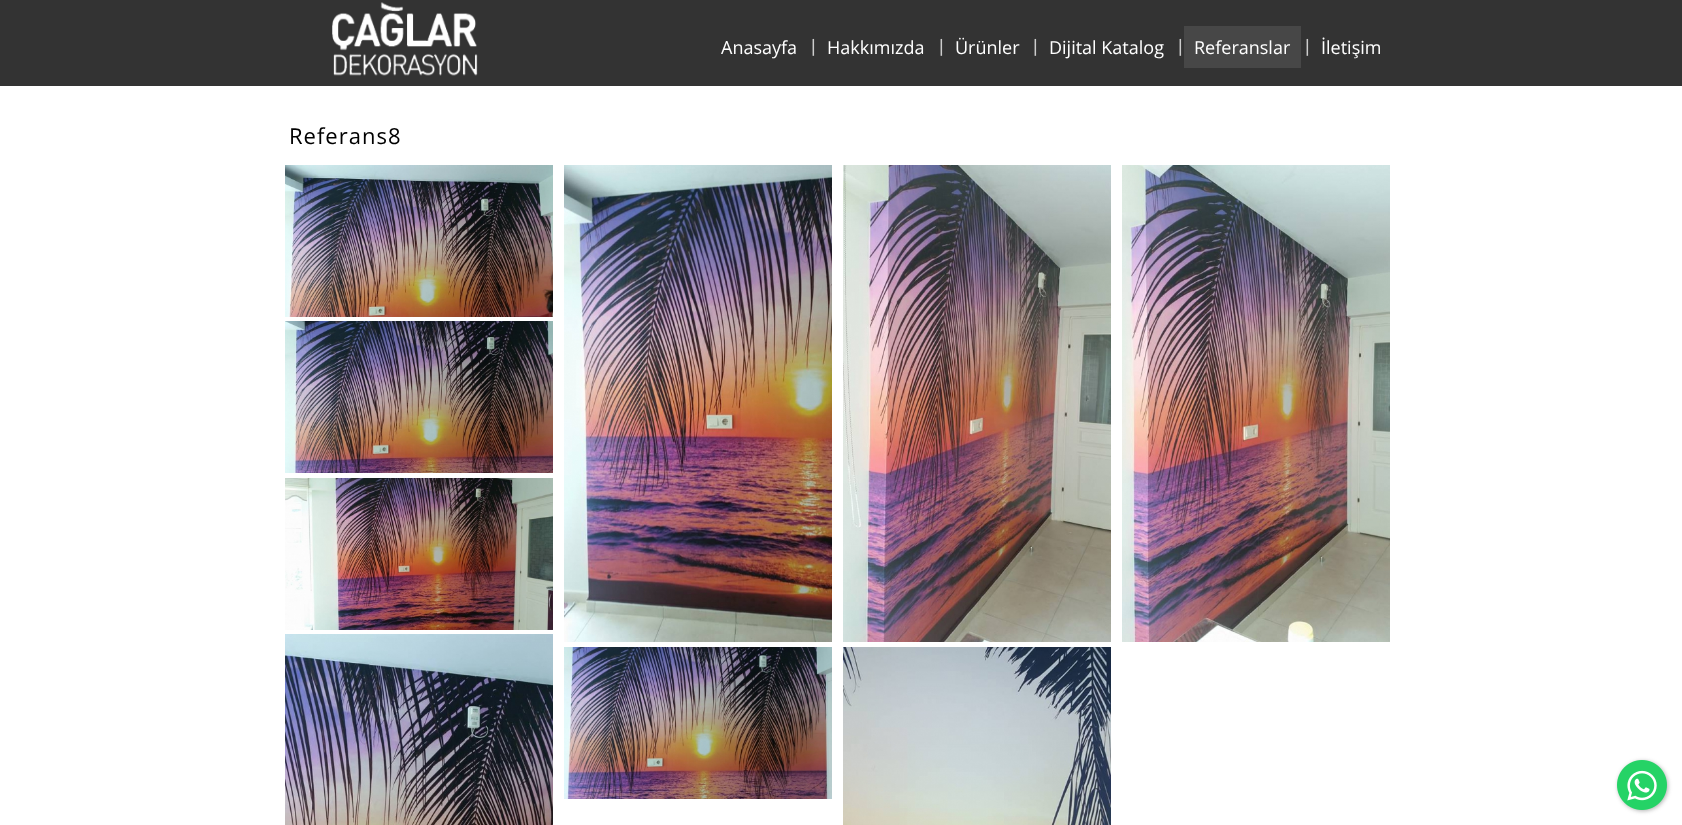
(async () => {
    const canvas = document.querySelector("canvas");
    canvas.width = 1682;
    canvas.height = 825;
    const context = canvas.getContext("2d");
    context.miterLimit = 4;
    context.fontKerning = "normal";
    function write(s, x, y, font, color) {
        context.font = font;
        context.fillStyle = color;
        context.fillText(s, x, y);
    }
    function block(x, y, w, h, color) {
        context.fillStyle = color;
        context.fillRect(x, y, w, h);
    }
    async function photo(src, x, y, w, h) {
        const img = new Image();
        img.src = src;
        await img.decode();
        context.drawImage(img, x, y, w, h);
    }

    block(0, 0, 1682, 825, "rgb(255, 255, 255)");
    block(0, 0, 1682, 86, "rgb(51, 51, 51)");
    await photo("media/1.png", 332, 2, 146, 74);
    write("Anasayfa", 721, 54, "18px Open Sans", "rgb(255, 255, 255)");
    write("|", 811, 52, "18px Liberation Sans", "rgb(204, 204, 204)");
    write("Hakkımızda", 827, 54, "18px Open Sans", "rgb(255, 255, 255)");
    write("|", 939, 52, "18px Liberation Sans", "rgb(204, 204, 204)");
    write("Ürünler", 955, 54, "18px Open Sans", "rgb(255, 255, 255)");
    write("|", 1033, 52, "18px Liberation Sans", "rgb(204, 204, 204)");
    write("Dijital Katalog", 1049, 54, "18px Open Sans", "rgb(255, 255, 255)");
    block(1184, 26, 117, 42, "rgb(71, 71, 71)");
    write("|", 1178, 52, "18px Liberation Sans", "rgb(204, 204, 204)");
    write("Referanslar", 1194, 54, "18px Open Sans", "rgb(255, 255, 255)");
    write("|", 1305, 52, "18px Liberation Sans", "rgb(204, 204, 204)");
    write("İletişim", 1321, 54, "18px Open Sans", "rgb(255, 255, 255)");
    context.letterSpacing = "1px";
    write("Referans8", 289, 144, "22px Open Sans", "rgb(0, 0, 0)");
    await photo("media/2.png", 285, 165, 268, 152);
    await photo("media/3.png", 564, 165, 268, 477);
    await photo("media/4.png", 843, 165, 268, 477);
    await photo("media/5.png", 1122, 165, 268, 477);
    await photo("media/6.png", 285, 321, 268, 152);
    await photo("media/7.png", 285, 478, 268, 152);
    await photo("media/8.png", 285, 634, 268, 191);
    await photo("media/9.png", 564, 647, 268, 152);
    await photo("media/10.png", 843, 647, 268, 178);
    context.fillStyle = "rgba(60, 60, 60, 0.4)";
    context.filter = "blur(2px)";
    context.beginPath();
    context.roundRect(1618, 761, 50, 50, 25);
    context.fill();
    context.filter = "none";
    await photo("media/11.png", 1617, 760, 50, 50);
})();
